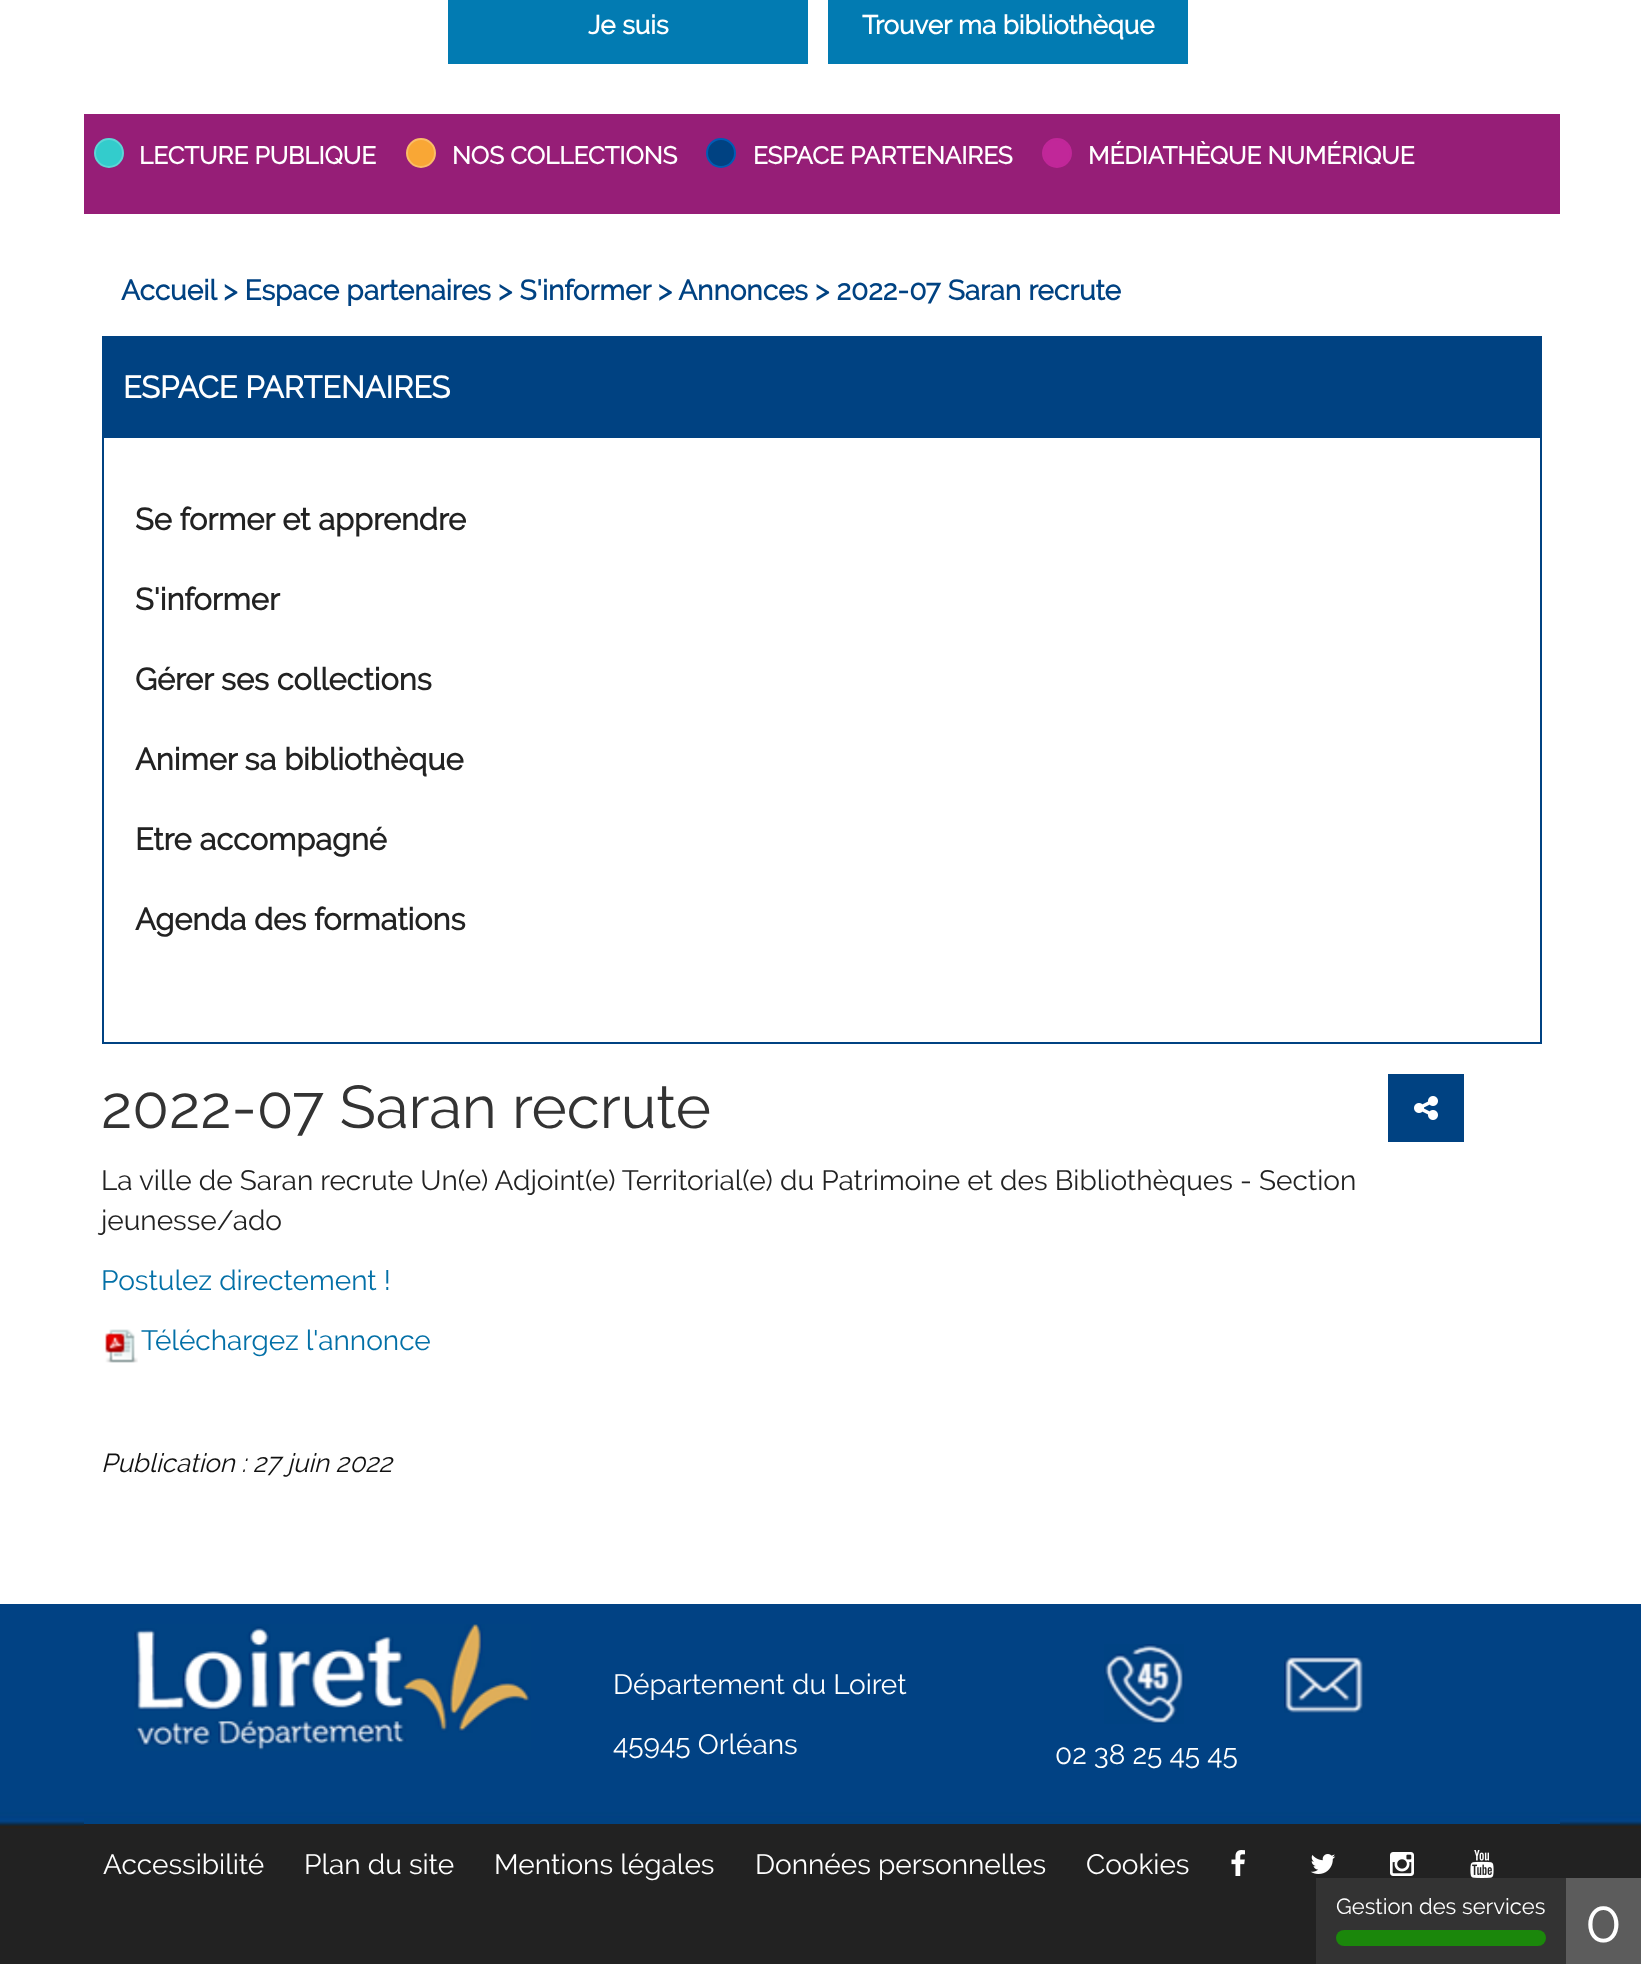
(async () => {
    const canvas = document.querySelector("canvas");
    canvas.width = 1641;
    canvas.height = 1964;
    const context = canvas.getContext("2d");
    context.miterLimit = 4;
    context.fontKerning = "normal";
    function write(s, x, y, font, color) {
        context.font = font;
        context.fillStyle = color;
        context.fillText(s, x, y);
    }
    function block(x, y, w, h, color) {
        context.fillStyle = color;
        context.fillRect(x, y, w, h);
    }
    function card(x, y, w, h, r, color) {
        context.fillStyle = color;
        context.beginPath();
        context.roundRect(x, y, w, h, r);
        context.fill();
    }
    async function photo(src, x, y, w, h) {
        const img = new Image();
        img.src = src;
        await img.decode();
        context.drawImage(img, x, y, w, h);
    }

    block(0, 0, 1641, 1964, "rgb(255, 255, 255)");
    block(448, 0, 360, 64, "rgb(2, 123, 178)");
    write("Je suis", 588, 34, "bold 26px Raleway", "rgb(255, 255, 255)");
    block(828, 0, 360, 64, "rgb(2, 123, 178)");
    write("Trouver ma bibliothèque", 862, 34, "bold 26px Raleway", "rgb(255, 255, 255)");
    block(84, 114, 1476, 100, "rgb(150, 30, 119)");
    context.fillStyle = "rgb(51, 204, 204)";
    context.beginPath();
    context.arc(109, 153, 14, 0, Math.PI * 2);
    context.fill();
    context.strokeStyle = "rgb(92, 214, 214)";
    context.lineWidth = 2;
    context.stroke();
    write("LECTURE PUBLIQUE", 139, 164, "bold 24.4px Raleway", "rgb(255, 255, 255)");
    context.fillStyle = "rgb(249, 167, 53)";
    context.beginPath();
    context.arc(421, 153, 14, 0, Math.PI * 2);
    context.fill();
    context.strokeStyle = "rgb(250, 189, 103)";
    context.stroke();
    write("NOS COLLECTIONS", 452, 164, "bold 24.4px Raleway", "rgb(255, 255, 255)");
    context.fillStyle = "rgb(0, 66, 130)";
    context.beginPath();
    context.arc(721, 153, 14, 0, Math.PI * 2);
    context.fill();
    context.strokeStyle = "rgb(0, 92, 181)";
    context.stroke();
    write("ESPACE PARTENAIRES", 753, 164, "bold 24.4px Raleway", "rgb(255, 255, 255)");
    context.fillStyle = "rgb(193, 39, 153)";
    context.beginPath();
    context.arc(1057, 153, 14, 0, Math.PI * 2);
    context.fill();
    context.strokeStyle = "rgb(193, 39, 153)";
    context.stroke();
    write("MÉDIATHÈQUE NUMÉRIQUE", 1088, 164, "bold 24.4px Raleway", "rgb(255, 255, 255)");
    write("Accueil > Espace partenaires > S'informer > Annonces > 2022-07 Saran recrute", 121, 300, "bold 28px Raleway", "rgb(0, 66, 130)");
    context.strokeStyle = "rgb(0, 66, 130)";
    context.strokeRect(103, 337, 1438, 706);
    block(104, 338, 1436, 100, "rgb(0, 66, 130)");
    write("ESPACE PARTENAIRES", 123, 398, "bold 30.75px Raleway", "rgb(255, 255, 255)");
    write("Se former et apprendre", 135, 530, "bold 30.75px Raleway", "rgb(34, 34, 34)");
    write("S'informer", 135, 610, "bold 30.75px Raleway", "rgb(34, 34, 34)");
    write("Gérer ses collections", 135, 690, "bold 30.75px Raleway", "rgb(34, 34, 34)");
    write("Animer sa bibliothèque", 135, 770, "bold 30.75px Raleway", "rgb(34, 34, 34)");
    write("Etre accompagné", 135, 850, "bold 30.75px Raleway", "rgb(34, 34, 34)");
    write("Agenda des formations", 135, 930, "bold 30.75px Raleway", "rgb(34, 34, 34)");
    write("2022-07 Saran recrute", 101, 1128, "60px Raleway", "rgb(51, 51, 51)");
    block(1388, 1074, 76, 68, "rgb(0, 66, 130)");
    await photo("media/1.png", 1414, 1096, 24, 24);
    write("La ville de Saran recrute Un(e) Adjoint(e) Territorial(e) du Patrimoine et des Bibliothèques - Section", 101, 1190, "28px Raleway", "rgb(34, 34, 34)");
    write("jeunesse/ado", 101, 1230, "28px Raleway", "rgb(34, 34, 34)");
    write("Postulez directement !", 101, 1290, "28px Raleway", "rgb(3, 112, 167)");
    await photo("media/2.png", 105, 1329, 33, 34);
    write("Téléchargez l'annonce", 141, 1350, "28px Raleway", "rgb(3, 112, 167)");
    write("Publication : 27 juin 2022", 101, 1472, "italic 26px Raleway", "rgb(17, 17, 17)");
    await photo("media/3.png", 0, 1604, 1641, 360);
    block(84, 1818, 1476, 6, "rgb(0, 66, 130)");
    await photo("media/4.png", 134, 1624, 397, 127);
    write("Département du Loiret", 613, 1694, "28px Raleway", "rgb(255, 255, 255)");
    write("45945 Orléans", 613, 1754, "28px Raleway", "rgb(255, 255, 255)");
    await photo("media/5.png", 1104, 1644, 80, 80);
    await photo("media/6.png", 1284, 1656, 79, 57);
    write("02 38 25 45 45", 1055, 1764, "28px Raleway", "rgb(255, 255, 255)");
    block(84, 1824, 1476, 5, "rgb(34, 34, 34)");
    write("Accessibilité", 103, 1874, "28px Raleway", "rgb(255, 255, 255)");
    write("Plan du site", 304, 1874, "28px Raleway", "rgb(255, 255, 255)");
    write("Mentions légales", 494, 1874, "28px Raleway", "rgb(255, 255, 255)");
    write("Données personnelles", 755, 1874, "28px Raleway", "rgb(255, 255, 255)");
    write("Cookies", 1086, 1874, "28px Raleway", "rgb(255, 255, 255)");
    await photo("media/7.png", 1231, 1850, 14, 26);
    await photo("media/8.png", 1310, 1854, 26, 20);
    await photo("media/9.png", 1390, 1852, 24, 24);
    await photo("media/10.png", 1470, 1850, 24, 28);
    block(1316, 1878, 250, 86, "rgb(51, 51, 51)");
    write("Gestion des services", 1336, 1914, "22px Raleway", "rgb(255, 255, 255)");
    card(1336, 1930, 210, 16, 8, "rgb(27, 135, 11)");
    block(1566, 1878, 75, 86, "rgb(92, 92, 92)");
    write("0", 1585, 1942, "60px Raleway", "rgb(255, 255, 255)");
})();
